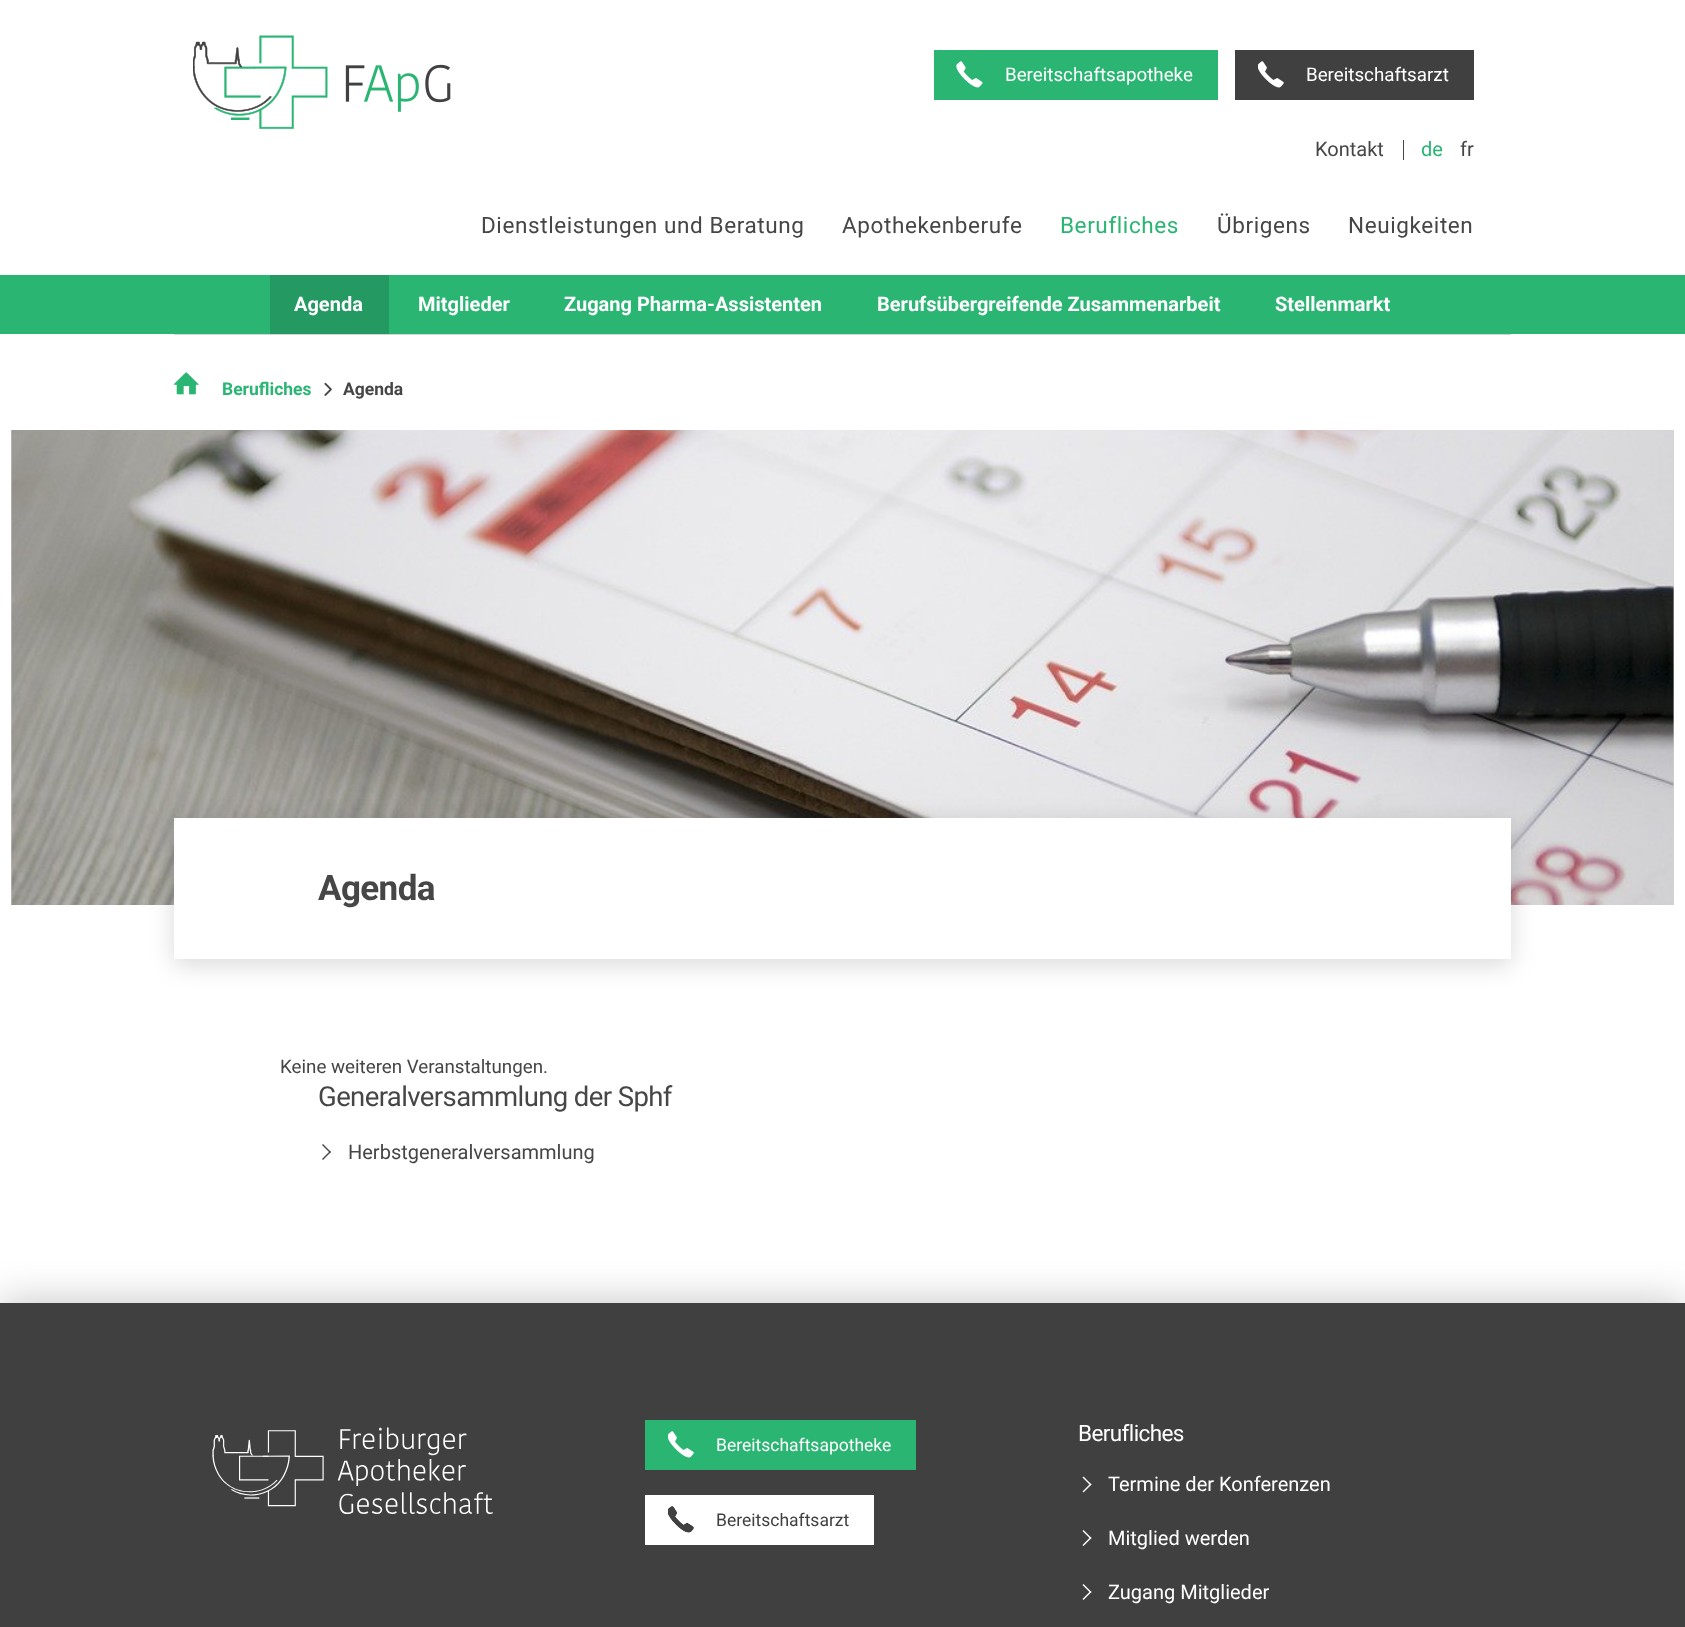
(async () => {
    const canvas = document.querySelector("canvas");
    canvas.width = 1685;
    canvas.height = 1627;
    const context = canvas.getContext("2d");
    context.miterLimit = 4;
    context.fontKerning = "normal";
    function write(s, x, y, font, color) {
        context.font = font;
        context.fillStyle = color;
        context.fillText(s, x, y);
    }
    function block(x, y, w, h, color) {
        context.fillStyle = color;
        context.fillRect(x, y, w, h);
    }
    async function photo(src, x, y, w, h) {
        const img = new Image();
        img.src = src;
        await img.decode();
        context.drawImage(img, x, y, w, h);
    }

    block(0, 0, 1685, 1627, "rgb(255, 255, 255)");
    await photo("media/1.png", 193, 35, 258, 94);
    block(934, 50, 284, 50, "rgb(42, 181, 115)");
    await photo("media/2.png", 956, 61, 27, 27);
    write("Bereitschaftsapotheke", 1005, 81, "18.75px Roboto", "rgb(255, 255, 255)");
    block(1235, 50, 239, 50, "rgb(64, 64, 65)");
    await photo("media/3.png", 1258, 61, 26, 27);
    write("Bereitschaftsarzt", 1306, 81, "18.75px Roboto", "rgb(255, 255, 255)");
    write("Kontakt", 1315, 156, "20px Roboto", "rgb(70, 70, 70)");
    block(1403, 140, 1, 20, "rgb(70, 70, 70)");
    write("de", 1421, 156, "20px Roboto", "rgb(42, 181, 115)");
    write("fr", 1460, 156, "20px Roboto", "rgb(70, 70, 70)");
    context.letterSpacing = "0.6px";
    write("Dienstleistungen und Beratung", 481, 233, "22.5px Roboto", "rgb(70, 70, 70)");
    write("Apothekenberufe", 842, 233, "22.5px Roboto", "rgb(70, 70, 70)");
    write("Berufliches", 1060, 233, "22.5px Roboto", "rgb(42, 181, 115)");
    write("Übrigens", 1217, 233, "22.5px Roboto", "rgb(70, 70, 70)");
    write("Neuigkeiten", 1348, 233, "22.5px Roboto", "rgb(70, 70, 70)");
    block(0, 275, 1685, 59, "rgb(42, 181, 115)");
    block(270, 275, 119, 59, "rgb(36, 154, 98)");
    context.letterSpacing = "0px";
    write("Agenda", 294, 311, "bold 20px Roboto", "rgb(255, 255, 255)");
    write("Mitglieder", 418, 311, "bold 20px Roboto", "rgb(255, 255, 255)");
    write("Zugang Pharma-Assistenten", 564, 311, "bold 20px Roboto", "rgb(255, 255, 255)");
    write("Berufsübergreifende Zusammenarbeit", 877, 311, "bold 20px Roboto", "rgb(255, 255, 255)");
    write("Stellenmarkt", 1275, 311, "bold 20px Roboto", "rgb(255, 255, 255)");
    block(174, 334, 1337, 1, "rgb(211, 211, 211)");
    await photo("media/4.png", 173, 372, 26, 23);
    write("Berufliches", 222, 395, "bold 17.5px Roboto", "rgb(42, 181, 115)");
    await photo("media/5.png", 324, 382, 8, 14);
    write("Agenda", 343, 395, "bold 17.5px Roboto", "rgb(70, 70, 70)");
    block(11, 430, 1663, 475, "rgb(211, 211, 211)");
    await photo("media/6.png", 11, 430, 1663, 475);
    context.fillStyle = "rgba(0, 0, 0, 0.15)";
    context.filter = "blur(12.5px)";
    context.beginPath();
    context.rect(174, 824, 1337, 141);
    context.fill();
    context.filter = "none";
    block(174, 818, 1337, 141, "rgb(255, 255, 255)");
    context.letterSpacing = "-0.6px";
    write("Agenda", 318, 900, "bold 35px Roboto", "rgb(70, 70, 70)");
    context.letterSpacing = "0px";
    write("Keine weiteren Veranstaltungen.", 280, 1073, "18.75px Roboto", "rgb(70, 70, 70)");
    context.letterSpacing = "-0.6px";
    write("Generalversammlung der Sphf", 318, 1106, "27.5px Roboto", "rgb(70, 70, 70)");
    context.beginPath();
    context.moveTo(331, 1152);
    context.lineTo(323, 1160);
    context.lineTo(322, 1159);
    context.lineTo(330, 1151);
    context.closePath();
    context.fill();
    context.beginPath();
    context.moveTo(331, 1152);
    context.lineTo(330, 1153);
    context.lineTo(322, 1145);
    context.lineTo(323, 1144);
    context.closePath();
    context.fill();
    context.letterSpacing = "0px";
    write("Herbstgeneralversammlung", 348, 1159, "20px Roboto", "rgb(70, 70, 70)");
    context.fillStyle = "rgba(0, 0, 0, 0.2)";
    context.filter = "blur(19px)";
    context.beginPath();
    context.rect(0, 1299, 1685, 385);
    context.fill();
    context.filter = "none";
    block(0, 1303, 1685, 324, "rgb(64, 64, 65)");
    await photo("media/7.png", 212, 1427, 281, 87);
    block(645, 1420, 271, 50, "rgb(42, 181, 115)");
    await photo("media/8.png", 668, 1431, 26, 27);
    write("Bereitschaftsapotheke", 716, 1451, "17.5px Roboto", "rgb(255, 255, 255)");
    block(645, 1495, 229, 50, "rgb(255, 255, 255)");
    await photo("media/9.png", 668, 1506, 26, 27);
    write("Bereitschaftsarzt", 716, 1526, "17.5px Roboto", "rgb(64, 64, 65)");
    context.letterSpacing = "-0.6px";
    write("Berufliches", 1078, 1441, "22.5px Roboto", "rgb(255, 255, 255)");
    context.beginPath();
    context.moveTo(1091.5, 1484.5);
    context.lineTo(1083.5, 1492.5);
    context.lineTo(1082.5, 1491.5);
    context.lineTo(1090.5, 1483.5);
    context.closePath();
    context.fill();
    context.beginPath();
    context.moveTo(1091.5, 1484.5);
    context.lineTo(1090.5, 1485.5);
    context.lineTo(1082.5, 1477.5);
    context.lineTo(1083.5, 1476.5);
    context.closePath();
    context.fill();
    context.letterSpacing = "0px";
    write("Termine der Konferenzen", 1108, 1491, "20px Roboto", "rgb(255, 255, 255)");
    context.beginPath();
    context.moveTo(1091.5, 1538);
    context.lineTo(1083.5, 1546);
    context.lineTo(1082.5, 1545);
    context.lineTo(1090.5, 1537);
    context.closePath();
    context.fill();
    context.beginPath();
    context.moveTo(1091.5, 1538);
    context.lineTo(1090.5, 1539);
    context.lineTo(1082.5, 1531);
    context.lineTo(1083.5, 1530);
    context.closePath();
    context.fill();
    write("Mitglied werden", 1108, 1545, "20px Roboto", "rgb(255, 255, 255)");
    context.beginPath();
    context.moveTo(1091.5, 1592);
    context.lineTo(1083.5, 1600);
    context.lineTo(1082.5, 1599);
    context.lineTo(1090.5, 1591);
    context.closePath();
    context.fill();
    context.beginPath();
    context.moveTo(1091.5, 1592);
    context.lineTo(1090.5, 1593);
    context.lineTo(1082.5, 1585);
    context.lineTo(1083.5, 1584);
    context.closePath();
    context.fill();
    write("Zugang Mitglieder", 1108, 1599, "20px Roboto", "rgb(255, 255, 255)");
})();
